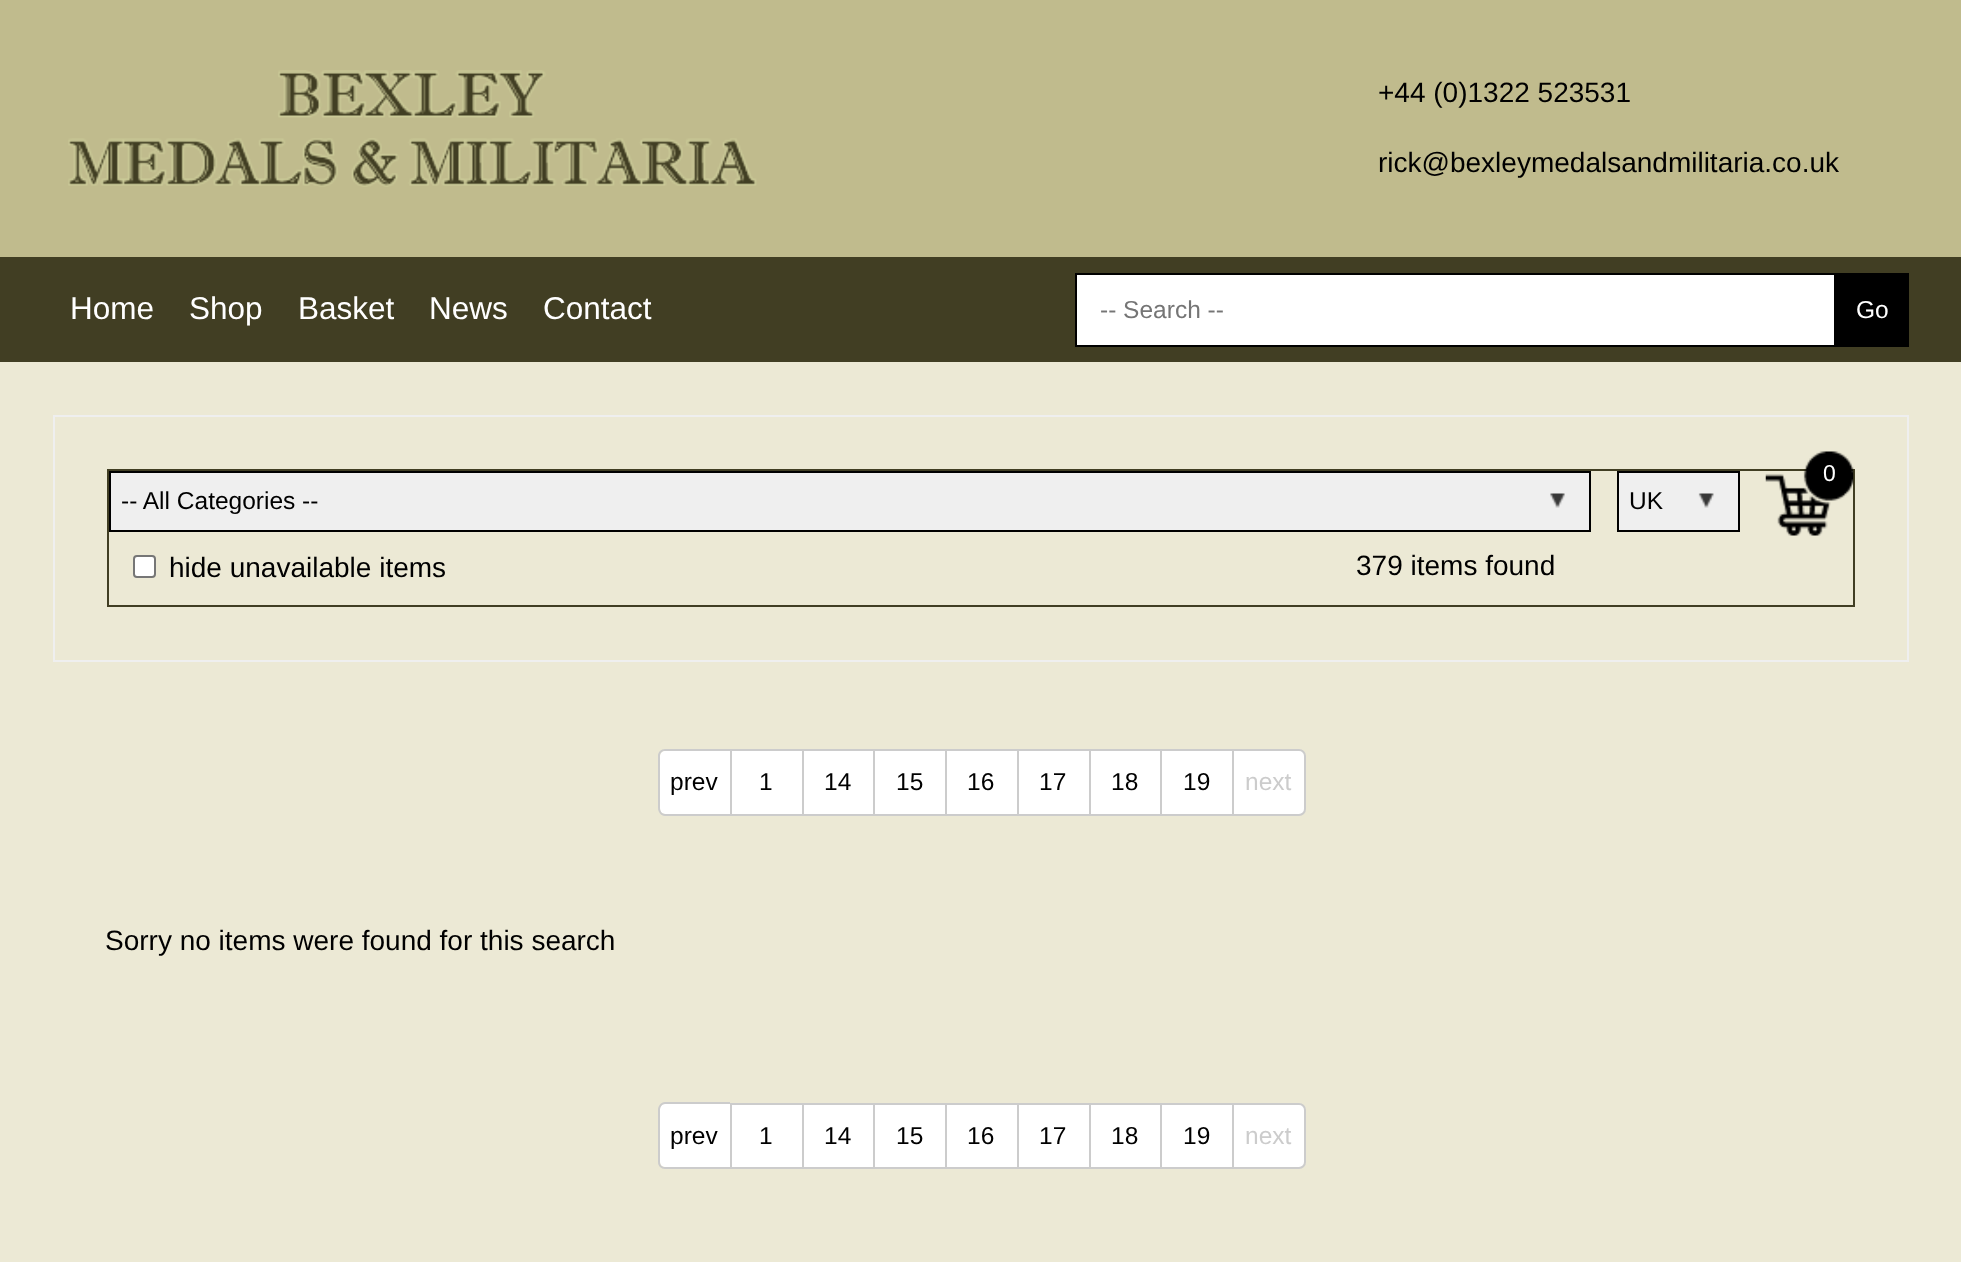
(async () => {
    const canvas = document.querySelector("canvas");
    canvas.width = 1961;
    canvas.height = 1262;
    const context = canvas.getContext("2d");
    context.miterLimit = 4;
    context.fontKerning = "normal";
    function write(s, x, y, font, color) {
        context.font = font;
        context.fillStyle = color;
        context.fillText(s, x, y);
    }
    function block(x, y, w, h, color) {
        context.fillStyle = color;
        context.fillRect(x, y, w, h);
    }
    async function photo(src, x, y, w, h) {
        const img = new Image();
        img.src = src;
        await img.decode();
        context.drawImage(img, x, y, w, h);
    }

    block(0, 0, 1961, 1262, "rgb(192, 187, 141)");
    await photo("media/1.png", 68, 70, 689, 117);
    write("+44 (0)1322 523531", 1378, 102, "28px Liberation Sans", "rgb(0, 0, 0)");
    write("rick@bexleymedalsandmilitaria.co.uk", 1378, 172, "28px Liberation Sans", "rgb(0, 0, 0)");
    block(0, 257, 1961, 105, "rgb(65, 62, 35)");
    write("Home", 70, 319, "31.5px Liberation Sans", "rgb(255, 255, 255)");
    write("Shop", 189, 319, "31.5px Liberation Sans", "rgb(255, 255, 255)");
    write("Basket", 298, 319, "31.5px Liberation Sans", "rgb(255, 255, 255)");
    write("News", 429, 319, "31.5px Liberation Sans", "rgb(255, 255, 255)");
    write("Contact", 543, 319, "31.5px Liberation Sans", "rgb(255, 255, 255)");
    context.beginPath();
    context.rect(1076, 274, 759, 72);
    context.fill();
    context.strokeStyle = "rgb(0, 0, 0)";
    context.lineWidth = 2;
    context.stroke();
    write("-- Search --", 1100, 318, "24.5px Liberation Sans", "rgb(117, 117, 117)");
    block(1836, 273, 73, 74, "rgb(0, 0, 0)");
    write("Go", 1856, 318, "24.5px Liberation Sans", "rgb(255, 255, 255)");
    block(0, 362, 1961, 900, "rgb(236, 233, 213)");
    context.strokeStyle = "rgb(239, 239, 239)";
    context.strokeRect(54, 416, 1854, 245);
    context.strokeStyle = "rgb(65, 62, 35)";
    context.strokeRect(108, 470, 1746, 136);
    await photo("media/2.png", 1765, 451, 89, 85);
    write("0", 1823, 481, "23px Liberation Sans", "rgb(255, 255, 255)");
    block(111, 473, 1478, 57, "rgb(239, 239, 239)");
    await photo("media/3.png", 1550, 493, 15, 15);
    context.strokeStyle = "rgb(0, 0, 0)";
    context.strokeRect(110, 472, 1480, 59);
    write("-- All Categories --", 121, 509, "24.5px Liberation Sans", "rgb(0, 0, 0)");
    context.fillStyle = "rgb(255, 255, 255)";
    context.beginPath();
    context.roundRect(134, 556, 21, 21, 3);
    context.fill();
    context.strokeStyle = "rgb(118, 118, 118)";
    context.stroke();
    write("hide unavailable items", 169, 577, "28px Liberation Sans", "rgb(0, 0, 0)");
    write("379 items found", 1356, 575, "28px Liberation Sans", "rgb(0, 0, 0)");
    block(1619, 473, 119, 57, "rgb(239, 239, 239)");
    await photo("media/4.png", 1698, 493, 16, 15);
    context.strokeStyle = "rgb(0, 0, 0)";
    context.strokeRect(1618, 472, 121, 59);
    write("UK", 1629, 509, "24.5px Liberation Sans", "rgb(0, 0, 0)");
    context.fillStyle = "rgb(255, 255, 255)";
    context.beginPath();
    context.roundRect(660, 751, 70, 63, [5, 0, 0, 5]);
    context.fill();
    context.fillStyle = "rgb(204, 204, 204)";
    context.beginPath();
    context.moveTo(665, 749);
    context.lineTo(730, 749);
    context.lineTo(730, 816);
    context.lineTo(665, 816);
    context.bezierCurveTo(661, 816, 658, 812, 658, 808);
    context.lineTo(658, 756);
    context.bezierCurveTo(658, 752, 661, 749, 665, 749);
    context.closePath();
    context.moveTo(665, 751);
    context.lineTo(730, 751);
    context.lineTo(730, 814);
    context.lineTo(665, 814);
    context.bezierCurveTo(662, 814, 660, 811, 660, 808);
    context.lineTo(660, 756);
    context.bezierCurveTo(660, 753, 662, 751, 665, 751);
    context.closePath();
    context.fill("evenodd");
    write("prev", 670, 790, "24.5px Liberation Sans", "rgb(0, 0, 0)");
    block(732, 751, 70, 63, "rgb(255, 255, 255)");
    block(730, 749, 502, 2, "rgb(204, 204, 204)");
    block(730, 814, 502, 2, "rgb(204, 204, 204)");
    block(730, 749, 2, 67, "rgb(204, 204, 204)");
    write("1", 759, 790, "24.5px Liberation Sans", "rgb(0, 0, 0)");
    block(804, 751, 69, 63, "rgb(255, 255, 255)");
    block(802, 749, 2, 67, "rgb(204, 204, 204)");
    write("14", 824, 790, "24.5px Liberation Sans", "rgb(0, 0, 0)");
    block(875, 751, 70, 63, "rgb(255, 255, 255)");
    block(873, 749, 2, 67, "rgb(204, 204, 204)");
    write("15", 896, 790, "24.5px Liberation Sans", "rgb(0, 0, 0)");
    block(947, 751, 70, 63, "rgb(255, 255, 255)");
    block(945, 749, 2, 67, "rgb(204, 204, 204)");
    write("16", 967, 790, "24.5px Liberation Sans", "rgb(0, 0, 0)");
    block(1019, 751, 70, 63, "rgb(255, 255, 255)");
    block(1017, 749, 2, 67, "rgb(204, 204, 204)");
    write("17", 1039, 790, "24.5px Liberation Sans", "rgb(0, 0, 0)");
    block(1091, 751, 69, 63, "rgb(255, 255, 255)");
    block(1089, 749, 2, 67, "rgb(204, 204, 204)");
    write("18", 1111, 790, "24.5px Liberation Sans", "rgb(0, 0, 0)");
    block(1162, 751, 70, 63, "rgb(255, 255, 255)");
    block(1160, 749, 2, 67, "rgb(204, 204, 204)");
    write("19", 1183, 790, "24.5px Liberation Sans", "rgb(0, 0, 0)");
    context.fillStyle = "rgb(255, 255, 255)";
    context.beginPath();
    context.roundRect(1233, 750, 72, 65, [0, 6, 6, 0]);
    context.fill();
    context.strokeStyle = "rgb(204, 204, 204)";
    context.stroke();
    write("next", 1245, 790, "24.5px Liberation Sans", "rgb(204, 204, 204)");
    write("Sorry no items were found for this search", 105, 950, "28px Liberation Sans", "rgb(0, 0, 0)");
    context.fillStyle = "rgb(255, 255, 255)";
    context.beginPath();
    context.roundRect(660, 1104, 70, 63, [5, 0, 0, 5]);
    context.fill();
    context.fillStyle = "rgb(204, 204, 204)";
    context.beginPath();
    context.moveTo(665, 1102);
    context.lineTo(730, 1102);
    context.lineTo(730, 1169);
    context.lineTo(665, 1169);
    context.bezierCurveTo(661, 1169, 658, 1166, 658, 1162);
    context.lineTo(658, 1110);
    context.bezierCurveTo(658, 1106, 661, 1102, 665, 1102);
    context.closePath();
    context.moveTo(665, 1104);
    context.lineTo(730, 1104);
    context.lineTo(730, 1167);
    context.lineTo(665, 1167);
    context.bezierCurveTo(662, 1167, 660, 1165, 660, 1162);
    context.lineTo(660, 1110);
    context.bezierCurveTo(660, 1107, 662, 1104, 665, 1104);
    context.closePath();
    context.fill("evenodd");
    write("prev", 670, 1144, "24.5px Liberation Sans", "rgb(0, 0, 0)");
    block(732, 1105, 70, 62, "rgb(255, 255, 255)");
    block(730, 1103, 502, 2, "rgb(204, 204, 204)");
    block(730, 1167, 502, 2, "rgb(204, 204, 204)");
    block(730, 1103, 2, 66, "rgb(204, 204, 204)");
    write("1", 759, 1144, "24.5px Liberation Sans", "rgb(0, 0, 0)");
    block(804, 1105, 69, 62, "rgb(255, 255, 255)");
    block(802, 1103, 2, 66, "rgb(204, 204, 204)");
    write("14", 824, 1144, "24.5px Liberation Sans", "rgb(0, 0, 0)");
    block(875, 1105, 70, 62, "rgb(255, 255, 255)");
    block(873, 1103, 2, 66, "rgb(204, 204, 204)");
    write("15", 896, 1144, "24.5px Liberation Sans", "rgb(0, 0, 0)");
    block(947, 1105, 70, 62, "rgb(255, 255, 255)");
    block(945, 1103, 2, 66, "rgb(204, 204, 204)");
    write("16", 967, 1144, "24.5px Liberation Sans", "rgb(0, 0, 0)");
    block(1019, 1105, 70, 62, "rgb(255, 255, 255)");
    block(1017, 1103, 2, 66, "rgb(204, 204, 204)");
    write("17", 1039, 1144, "24.5px Liberation Sans", "rgb(0, 0, 0)");
    block(1091, 1105, 69, 62, "rgb(255, 255, 255)");
    block(1089, 1103, 2, 66, "rgb(204, 204, 204)");
    write("18", 1111, 1144, "24.5px Liberation Sans", "rgb(0, 0, 0)");
    block(1162, 1105, 70, 62, "rgb(255, 255, 255)");
    block(1160, 1103, 2, 66, "rgb(204, 204, 204)");
    write("19", 1183, 1144, "24.5px Liberation Sans", "rgb(0, 0, 0)");
    context.fillStyle = "rgb(255, 255, 255)";
    context.beginPath();
    context.roundRect(1233, 1104, 72, 64, [0, 6, 6, 0]);
    context.fill();
    context.stroke();
    write("next", 1245, 1144, "24.5px Liberation Sans", "rgb(204, 204, 204)");
})();
